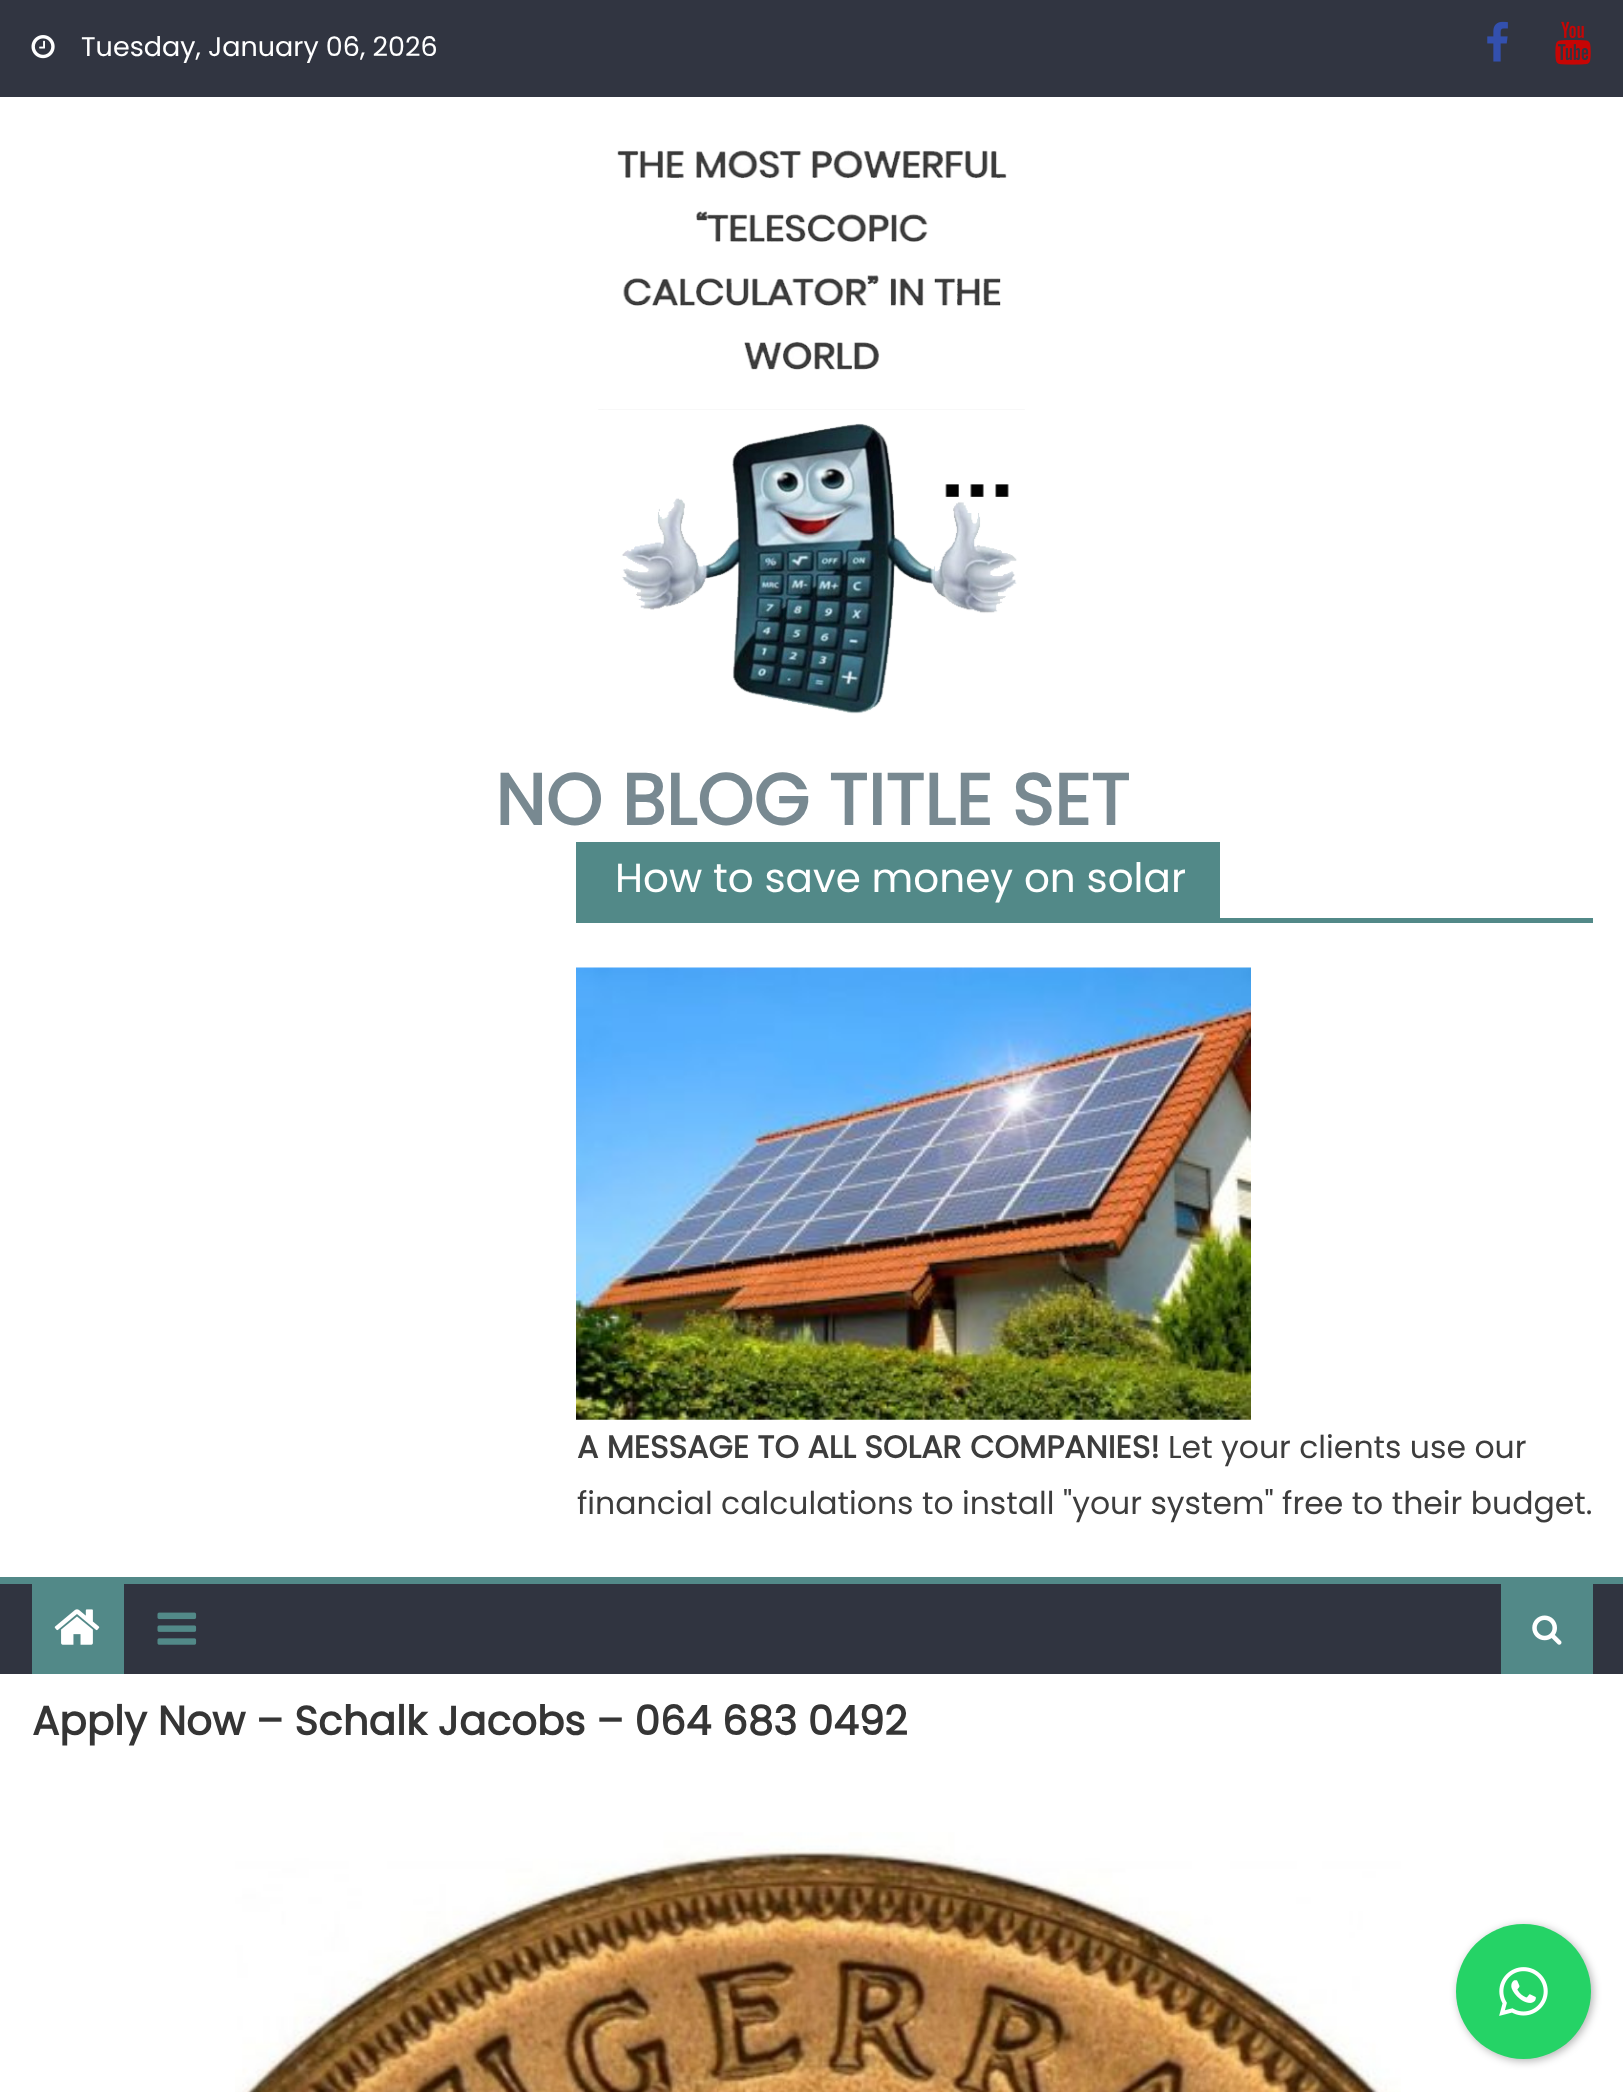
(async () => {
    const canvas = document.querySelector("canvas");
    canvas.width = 1623;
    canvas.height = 2092;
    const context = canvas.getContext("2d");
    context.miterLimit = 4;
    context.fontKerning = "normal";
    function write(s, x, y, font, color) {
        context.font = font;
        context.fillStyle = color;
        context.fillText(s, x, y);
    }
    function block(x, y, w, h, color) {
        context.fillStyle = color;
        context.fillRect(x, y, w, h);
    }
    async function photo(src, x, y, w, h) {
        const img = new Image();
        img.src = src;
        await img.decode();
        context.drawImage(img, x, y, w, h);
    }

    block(0, 0, 1623, 2092, "rgb(255, 255, 255)");
    block(0, 0, 1623, 97, "rgb(49, 53, 65)");
    await photo("media/1.png", 31, 35, 24, 24);
    write("Tuesday, January 06, 2026", 81, 56, "27px Poppins", "rgb(255, 255, 255)");
    await photo("media/2.png", 1487, 21, 21, 41);
    await photo("media/3.png", 1555, 21, 36, 44);
    await photo("media/4.png", 598, 150, 427, 564);
    write("NO BLOG TITLE SET", 495, 825, "bold 72px Poppins", "rgb(120, 137, 145)");
    block(576, 918, 1017, 5, "rgb(82, 137, 136)");
    block(576, 842, 5, 81, "rgb(82, 137, 136)");
    block(581, 842, 639, 76, "rgb(82, 137, 136)");
    write("How to save money on solar", 615, 892, "40.5px Poppins", "rgb(255, 255, 255)");
    await photo("media/5.png", 576, 967, 675, 453);
    write("A MESSAGE TO ALL SOLAR COMPANIES!", 577, 1458, "bold 31.5px Poppins", "rgb(61, 61, 61)");
    write("Let your clients use our", 1168, 1458, "31.5px Poppins", "rgb(61, 61, 61)");
    write("financial calculations to install \"your system\" free to their budget.", 577, 1514, "31.5px Poppins", "rgb(61, 61, 61)");
    block(0, 1584, 1623, 90, "rgb(48, 52, 64)");
    block(0, 1577, 1623, 7, "rgb(82, 137, 136)");
    block(32, 1584, 92, 90, "rgb(82, 137, 136)");
    await photo("media/6.png", 54, 1609, 46, 36);
    await photo("media/7.png", 157, 1612, 40, 33);
    block(1501, 1584, 92, 90, "rgb(82, 137, 136)");
    await photo("media/8.png", 1532, 1615, 30, 30);
    write("Apply Now – Schalk Jacobs – 064 683 0492", 32, 1735, "bold 40.5px Poppins", "rgb(53, 53, 53)");
    await photo("media/9.png", 235, 1832, 1166, 260);
    context.fillStyle = "rgba(0, 0, 0, 0.3)";
    context.filter = "blur(4.5px)";
    context.beginPath();
    context.roundRect(1458, 1926, 135, 135, 67.5);
    context.fill();
    context.filter = "none";
    context.fillStyle = "rgb(37, 211, 102)";
    context.beginPath();
    context.arc(1523.5, 1991.5, 67.5, 0, Math.PI * 2);
    context.fill();
    await photo("media/10.png", 1499, 1967, 49, 49);
})();
